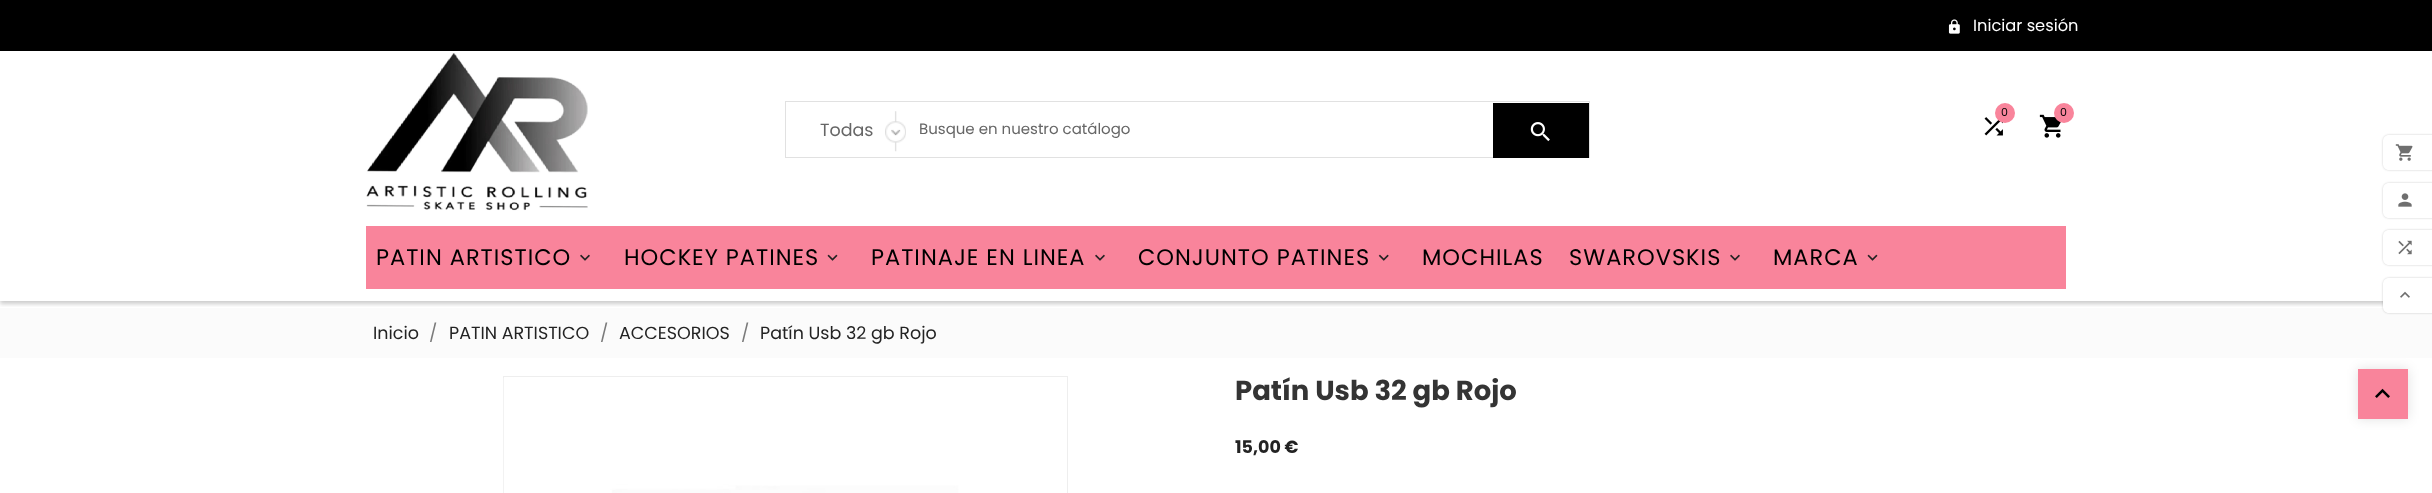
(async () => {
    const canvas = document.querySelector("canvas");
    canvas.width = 2432;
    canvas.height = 493;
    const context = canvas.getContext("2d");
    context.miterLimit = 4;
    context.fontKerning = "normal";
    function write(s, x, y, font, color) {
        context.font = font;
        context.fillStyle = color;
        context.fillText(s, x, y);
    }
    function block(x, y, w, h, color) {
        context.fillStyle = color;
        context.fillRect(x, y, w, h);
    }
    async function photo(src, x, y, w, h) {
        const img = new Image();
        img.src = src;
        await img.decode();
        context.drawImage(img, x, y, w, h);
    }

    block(0, 0, 2432, 493, "rgb(255, 255, 255)");
    context.save();
    context.beginPath();
    context.rect(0, 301, 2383, 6);
    context.clip();
    context.fillStyle = "rgba(0, 0, 0, 0.2)";
    context.filter = "blur(2px)";
    context.beginPath();
    context.rect(0, 3, 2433, 301);
    context.fill();
    context.filter = "none";
    context.restore();
    block(0, 0, 2432, 51, "rgb(0, 0, 0)");
    await photo("media/1.png", 1948, 19, 12, 15);
    write("Iniciar sesión", 1973, 31, "16.25px Poppins", "rgb(255, 255, 255)");
    await photo("media/2.png", 366, 53, 222, 158);
    await photo("media/3.png", 1984, 117, 19, 19);
    context.fillStyle = "rgb(249, 132, 155)";
    context.beginPath();
    context.arc(2005, 113, 10, 0, Math.PI * 2);
    context.fill();
    write("0", 2001, 116, "11px Poppins", "rgb(0, 0, 0)");
    await photo("media/4.png", 2039, 114, 22, 24);
    context.fillStyle = "rgb(249, 132, 155)";
    context.beginPath();
    context.arc(2064, 113, 10, 0, Math.PI * 2);
    context.fill();
    write("0", 2060, 116, "11px Poppins", "rgb(0, 0, 0)");
    context.strokeStyle = "rgb(225, 225, 225)";
    context.strokeRect(785.5, 101.5, 804, 56);
    await photo("media/5.png", 885, 111, 21, 41);
    write("Todas", 820, 136, "17.5px Poppins", "rgb(102, 102, 102)");
    write("Busque en nuestro catálogo", 919, 134, "15px Poppins", "rgb(102, 102, 102)");
    block(1493, 103, 96, 55, "rgb(0, 0, 0)");
    await photo("media/6.png", 1530, 122, 20, 20);
    block(366, 226, 1700, 63, "rgb(249, 132, 155)");
    context.letterSpacing = "1px";
    write("PATIN ARTISTICO", 376, 265, "22.5px Poppins", "rgb(0, 0, 0)");
    await photo("media/7.png", 580, 254, 10, 7);
    write("HOCKEY PATINES", 624, 265, "22.5px Poppins", "rgb(0, 0, 0)");
    await photo("media/8.png", 827, 254, 11, 7);
    write("PATINAJE EN LINEA", 871, 265, "22.5px Poppins", "rgb(0, 0, 0)");
    await photo("media/7.png", 1095, 254, 10, 7);
    write("CONJUNTO PATINES", 1138, 265, "22.5px Poppins", "rgb(0, 0, 0)");
    await photo("media/9.png", 1378, 254, 11, 7);
    write("MOCHILAS", 1422, 265, "22.5px Poppins", "rgb(0, 0, 0)");
    write("SWAROVSKIS", 1569, 265, "22.5px Poppins", "rgb(0, 0, 0)");
    await photo("media/7.png", 1730, 254, 10, 7);
    write("MARCA", 1773, 265, "22.5px Poppins", "rgb(0, 0, 0)");
    await photo("media/8.png", 1867, 254, 11, 7);
    context.fillStyle = "rgba(0, 0, 0, 0.2)";
    context.filter = "blur(1px)";
    context.beginPath();
    context.roundRect(2383, 135, 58, 35, 6);
    context.fill();
    context.filter = "none";
    context.fillStyle = "rgb(255, 255, 255)";
    context.beginPath();
    context.moveTo(2389, 135);
    context.lineTo(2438, 135);
    context.lineTo(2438, 170);
    context.lineTo(2389, 170);
    context.bezierCurveTo(2385.5, 170, 2383, 167.5, 2383, 164);
    context.lineTo(2383, 141);
    context.bezierCurveTo(2383, 137.5, 2385.5, 135, 2389, 135);
    context.closePath();
    context.fill();
    await photo("media/10.png", 2395, 144, 18, 17);
    context.fillStyle = "rgba(0, 0, 0, 0.2)";
    context.filter = "blur(1px)";
    context.beginPath();
    context.roundRect(2383, 183, 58, 35, 6);
    context.fill();
    context.filter = "none";
    context.fillStyle = "rgb(255, 255, 255)";
    context.beginPath();
    context.moveTo(2389, 183);
    context.lineTo(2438, 183);
    context.lineTo(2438, 218);
    context.lineTo(2389, 218);
    context.bezierCurveTo(2385.5, 218, 2383, 215.5, 2383, 212);
    context.lineTo(2383, 189);
    context.bezierCurveTo(2383, 185.5, 2385.5, 183, 2389, 183);
    context.closePath();
    context.fill();
    await photo("media/11.png", 2398, 193, 14, 14);
    context.fillStyle = "rgba(0, 0, 0, 0.2)";
    context.filter = "blur(1px)";
    context.beginPath();
    context.roundRect(2383, 230, 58, 35, 6);
    context.fill();
    context.filter = "none";
    context.fillStyle = "rgb(255, 255, 255)";
    context.beginPath();
    context.moveTo(2389, 230);
    context.lineTo(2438, 230);
    context.lineTo(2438, 265);
    context.lineTo(2389, 265);
    context.bezierCurveTo(2385.5, 265, 2383, 262.5, 2383, 259);
    context.lineTo(2383, 236);
    context.bezierCurveTo(2383, 232.5, 2385.5, 230, 2389, 230);
    context.closePath();
    context.fill();
    await photo("media/12.png", 2398, 240, 14, 15);
    block(0, 308, 2432, 50, "rgb(251, 251, 251)");
    context.fillStyle = "rgba(0, 0, 0, 0.2)";
    context.filter = "blur(1px)";
    context.beginPath();
    context.roundRect(2383, 278, 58, 35, 6);
    context.fill();
    context.filter = "none";
    context.fillStyle = "rgb(255, 255, 255)";
    context.beginPath();
    context.moveTo(2389, 278);
    context.lineTo(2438, 278);
    context.lineTo(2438, 313);
    context.lineTo(2389, 313);
    context.bezierCurveTo(2385.5, 313, 2383, 310.5, 2383, 307);
    context.lineTo(2383, 284);
    context.bezierCurveTo(2383, 280.5, 2385.5, 278, 2389, 278);
    context.closePath();
    context.fill();
    await photo("media/13.png", 2400, 291, 10, 7);
    context.letterSpacing = "0px";
    write("Inicio", 373, 339, "17.5px Poppins", "rgb(35, 35, 35)");
    write("/", 429, 339, "17.5px Poppins", "rgb(122, 122, 122)");
    write("PATIN ARTISTICO", 449, 339, "17.5px Poppins", "rgb(35, 35, 35)");
    write("/", 600, 339, "17.5px Poppins", "rgb(122, 122, 122)");
    write("ACCESORIOS", 619, 339, "17.5px Poppins", "rgb(35, 35, 35)");
    write("/", 741, 339, "17.5px Poppins", "rgb(122, 122, 122)");
    write("Patín Usb 32 gb Rojo", 760, 339, "17.5px Poppins", "rgb(35, 35, 35)");
    context.strokeStyle = "rgb(238, 238, 238)";
    context.strokeRect(503.5, 376.5, 564, 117);
    await photo("media/14.png", 503, 378, 563, 115);
    write("Patín Usb 32 gb Rojo", 1235, 400, "bold 27.5px Poppins", "rgb(52, 52, 52)");
    write("15,00 €", 1235, 453, "bold 17.5px Poppins", "rgb(35, 35, 35)");
    context.fillStyle = "rgba(0, 0, 0, 0.12)";
    context.filter = "blur(6px)";
    context.beginPath();
    context.rect(2358, 369, 50, 50);
    context.fill();
    context.filter = "none";
    block(2358, 369, 50, 50, "rgb(249, 132, 155)");
    await photo("media/15.png", 2375, 388, 15, 10);
})();
